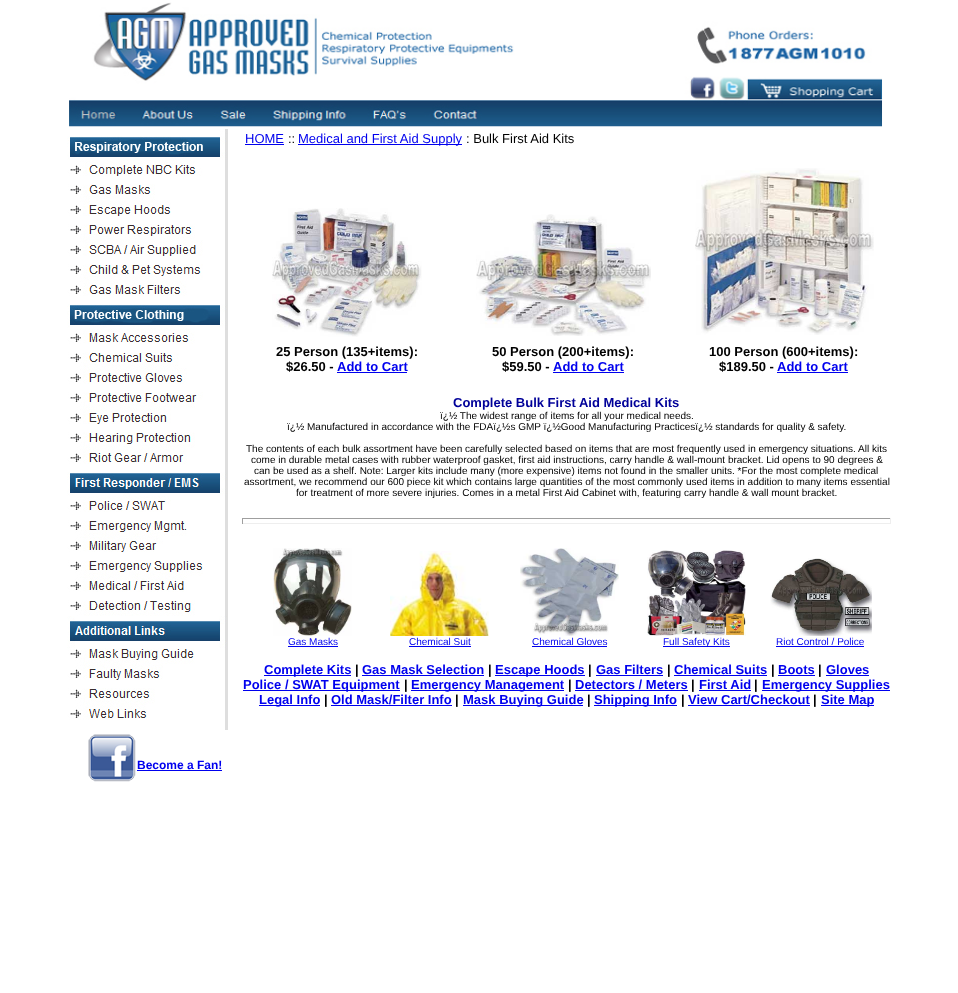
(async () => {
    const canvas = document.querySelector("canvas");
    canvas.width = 958;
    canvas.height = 993;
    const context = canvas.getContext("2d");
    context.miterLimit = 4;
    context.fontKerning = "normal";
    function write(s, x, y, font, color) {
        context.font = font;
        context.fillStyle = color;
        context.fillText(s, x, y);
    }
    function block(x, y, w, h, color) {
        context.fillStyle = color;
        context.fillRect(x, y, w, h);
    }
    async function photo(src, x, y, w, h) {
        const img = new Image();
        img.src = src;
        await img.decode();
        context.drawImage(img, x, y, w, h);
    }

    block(0, 0, 958, 993, "rgb(255, 255, 255)");
    await photo("media/1.png", 69, 2, 814, 125);
    write("HOME", 245, 143, "13px Liberation Sans", "rgb(0, 0, 238)");
    block(245, 144, 39, 1, "rgb(0, 0, 238)");
    write("::", 288, 143, "13px Liberation Sans", "rgb(0, 0, 0)");
    block(298, 144, 164, 1, "rgb(0, 0, 238)");
    write("Medical and First Aid Supply", 298, 143, "13px Liberation Sans", "rgb(0, 0, 238)");
    write(": Bulk First Aid Kits", 466, 143, "13px Liberation Sans", "rgb(0, 0, 0)");
    await photo("media/2.png", 272, 208, 150, 129);
    write("25 Person (135+items):", 276, 356, "bold 13px Liberation Sans", "rgb(0, 0, 0)");
    write("$26.50 -", 286, 371, "bold 13px Liberation Sans", "rgb(0, 0, 0)");
    write("Add to Cart", 337, 371, "bold 13px Liberation Sans", "rgb(0, 0, 238)");
    block(337, 372, 70, 1, "rgb(0, 0, 238)");
    await photo("media/3.png", 476, 214, 175, 122);
    write("50 Person (200+items):", 492, 356, "bold 13px Liberation Sans", "rgb(0, 0, 0)");
    write("$59.50 -", 502, 371, "bold 13px Liberation Sans", "rgb(0, 0, 0)");
    write("Add to Cart", 553, 371, "bold 13px Liberation Sans", "rgb(0, 0, 238)");
    block(553, 372, 71, 1, "rgb(0, 0, 238)");
    await photo("media/4.png", 695, 168, 179, 167);
    write("100 Person (600+items):", 709, 356, "bold 13px Liberation Sans", "rgb(0, 0, 0)");
    write("$189.50 -", 719, 371, "bold 13px Liberation Sans", "rgb(0, 0, 0)");
    write("Add to Cart", 777, 371, "bold 13px Liberation Sans", "rgb(0, 0, 238)");
    block(777, 372, 71, 1, "rgb(0, 0, 238)");
    write("Complete Bulk First Aid Medical Kits", 453, 407, "bold 13px Liberation Sans", "rgb(0, 0, 153)");
    write("ï¿½ The widest range of items for all your medical needs.", 440, 419, "10px Liberation Sans", "rgb(0, 0, 0)");
    write("ï¿½ Manufactured in accordance with the FDAï¿½s GMP ï¿½Good Manufacturing Practicesï¿½ standards for quality & safety.", 287, 430, "10px Liberation Sans", "rgb(0, 0, 0)");
    write("The contents of each bulk assortment have been carefully selected based on items that are most frequently used in emergency situations. All kits", 246, 452, "10px Liberation Sans", "rgb(0, 0, 0)");
    write("come in durable metal cases with rubber waterproof gasket, first aid instructions, carry handle & wall-mount bracket. Lid opens to 90 degrees &", 251, 463, "10px Liberation Sans", "rgb(0, 0, 0)");
    write("can be used as a shelf. Note: Larger kits include many (more expensive) items not found in the smaller units. *For the most complete medical", 254, 474, "10px Liberation Sans", "rgb(0, 0, 0)");
    write("assortment, we recommend our 600 piece kit which contains large quantities of the most commonly used items in addition to many items essential", 244, 485, "10px Liberation Sans", "rgb(0, 0, 0)");
    write("for treatment of more severe injuries. Comes in a metal First Aid Cabinet with, featuring carry handle & wall mount bracket.", 296, 496, "10px Liberation Sans", "rgb(0, 0, 0)");
    block(242, 518, 649, 1, "rgb(159, 159, 159)");
    block(890, 518, 1, 6, "rgb(238, 238, 238)");
    block(242, 523, 649, 1, "rgb(238, 238, 238)");
    block(242, 518, 1, 6, "rgb(159, 159, 159)");
    await photo("media/5.png", 273, 548, 79, 88);
    write("Gas Masks", 288, 645, "10px Liberation Sans", "rgb(0, 0, 238)");
    block(288, 646, 50, 1, "rgb(0, 0, 238)");
    await photo("media/6.png", 390, 551, 99, 85);
    write("Chemical Suit", 409, 645, "10px Liberation Sans", "rgb(0, 0, 238)");
    block(409, 646, 62, 1, "rgb(0, 0, 238)");
    await photo("media/7.png", 520, 548, 99, 88);
    write("Chemical Gloves", 532, 645, "10px Liberation Sans", "rgb(0, 0, 238)");
    block(532, 646, 75, 1, "rgb(0, 0, 238)");
    await photo("media/8.png", 647, 550, 99, 86);
    block(663, 646, 67, 1, "rgb(0, 0, 238)");
    write("Full Safety Kits", 663, 645, "10px Liberation Sans", "rgb(0, 0, 238)");
    await photo("media/9.png", 770, 558, 102, 78);
    write("Riot Control / Police", 776, 645, "10px Liberation Sans", "rgb(0, 0, 238)");
    block(776, 646, 88, 1, "rgb(0, 0, 238)");
    block(264, 675, 87, 1, "rgb(0, 0, 238)");
    write("Complete Kits", 264, 674, "bold 13px Liberation Sans", "rgb(0, 0, 238)");
    write("|", 355, 674, "bold 13px Liberation Sans", "rgb(0, 0, 0)");
    write("Gas Mask Selection", 362, 674, "bold 13px Liberation Sans", "rgb(0, 0, 238)");
    block(362, 675, 122, 1, "rgb(0, 0, 238)");
    write("|", 488, 674, "bold 13px Liberation Sans", "rgb(0, 0, 0)");
    block(495, 675, 90, 1, "rgb(0, 0, 238)");
    write("Escape Hoods", 495, 674, "bold 13px Liberation Sans", "rgb(0, 0, 238)");
    write("|", 588, 674, "bold 13px Liberation Sans", "rgb(0, 0, 0)");
    write("Gas Filters", 596, 674, "bold 13px Liberation Sans", "rgb(0, 0, 238)");
    block(596, 675, 67, 1, "rgb(0, 0, 238)");
    write("|", 667, 674, "bold 13px Liberation Sans", "rgb(0, 0, 0)");
    write("Chemical Suits", 674, 674, "bold 13px Liberation Sans", "rgb(0, 0, 238)");
    block(674, 675, 93, 1, "rgb(0, 0, 238)");
    write("|", 771, 674, "bold 13px Liberation Sans", "rgb(0, 0, 0)");
    write("Boots", 778, 674, "bold 13px Liberation Sans", "rgb(0, 0, 238)");
    block(778, 675, 37, 1, "rgb(0, 0, 238)");
    write("|", 818, 674, "bold 13px Liberation Sans", "rgb(0, 0, 0)");
    write("Gloves", 826, 674, "bold 13px Liberation Sans", "rgb(0, 0, 238)");
    block(826, 675, 43, 1, "rgb(0, 0, 238)");
    block(243, 690, 157, 1, "rgb(0, 0, 238)");
    write("Police / SWAT Equipment", 243, 689, "bold 13px Liberation Sans", "rgb(0, 0, 238)");
    write("|", 404, 689, "bold 13px Liberation Sans", "rgb(0, 0, 0)");
    block(411, 690, 153, 1, "rgb(0, 0, 238)");
    write("Emergency Management", 411, 689, "bold 13px Liberation Sans", "rgb(0, 0, 238)");
    write("|", 568, 689, "bold 13px Liberation Sans", "rgb(0, 0, 0)");
    write("Detectors / Meters", 575, 689, "bold 13px Liberation Sans", "rgb(0, 0, 238)");
    block(575, 690, 113, 1, "rgb(0, 0, 238)");
    write("|", 691, 689, "bold 13px Liberation Sans", "rgb(0, 0, 0)");
    write("First Aid", 699, 689, "bold 13px Liberation Sans", "rgb(0, 0, 238)");
    block(699, 690, 52, 1, "rgb(0, 0, 238)");
    write("|", 754, 689, "bold 13px Liberation Sans", "rgb(0, 0, 0)");
    block(762, 690, 128, 1, "rgb(0, 0, 238)");
    write("Emergency Supplies", 762, 689, "bold 13px Liberation Sans", "rgb(0, 0, 238)");
    block(259, 705, 61, 1, "rgb(0, 0, 238)");
    write("Legal Info", 259, 704, "bold 13px Liberation Sans", "rgb(0, 0, 238)");
    write("|", 324, 704, "bold 13px Liberation Sans", "rgb(0, 0, 0)");
    write("Old Mask/Filter Info", 331, 704, "bold 13px Liberation Sans", "rgb(0, 0, 238)");
    block(331, 705, 121, 1, "rgb(0, 0, 238)");
    write("|", 455, 704, "bold 13px Liberation Sans", "rgb(0, 0, 0)");
    block(463, 705, 120, 1, "rgb(0, 0, 238)");
    write("Mask Buying Guide", 463, 704, "bold 13px Liberation Sans", "rgb(0, 0, 238)");
    write("|", 587, 704, "bold 13px Liberation Sans", "rgb(0, 0, 0)");
    block(594, 705, 83, 1, "rgb(0, 0, 238)");
    write("Shipping Info", 594, 704, "bold 13px Liberation Sans", "rgb(0, 0, 238)");
    write("|", 681, 704, "bold 13px Liberation Sans", "rgb(0, 0, 0)");
    write("View Cart/Checkout", 688, 704, "bold 13px Liberation Sans", "rgb(0, 0, 238)");
    block(688, 705, 122, 1, "rgb(0, 0, 238)");
    write("|", 813, 704, "bold 13px Liberation Sans", "rgb(0, 0, 0)");
    block(821, 705, 53, 1, "rgb(0, 0, 238)");
    write("Site Map", 821, 704, "bold 13px Liberation Sans", "rgb(0, 0, 238)");
    await photo("media/10.png", 67, 129, 161, 601);
    await photo("media/11.png", 88, 734, 48, 48);
    write("Become a Fan!", 137, 769, "bold 12px Liberation Sans", "rgb(0, 0, 238)");
    block(137, 770, 85, 1, "rgb(0, 0, 238)");
})();
